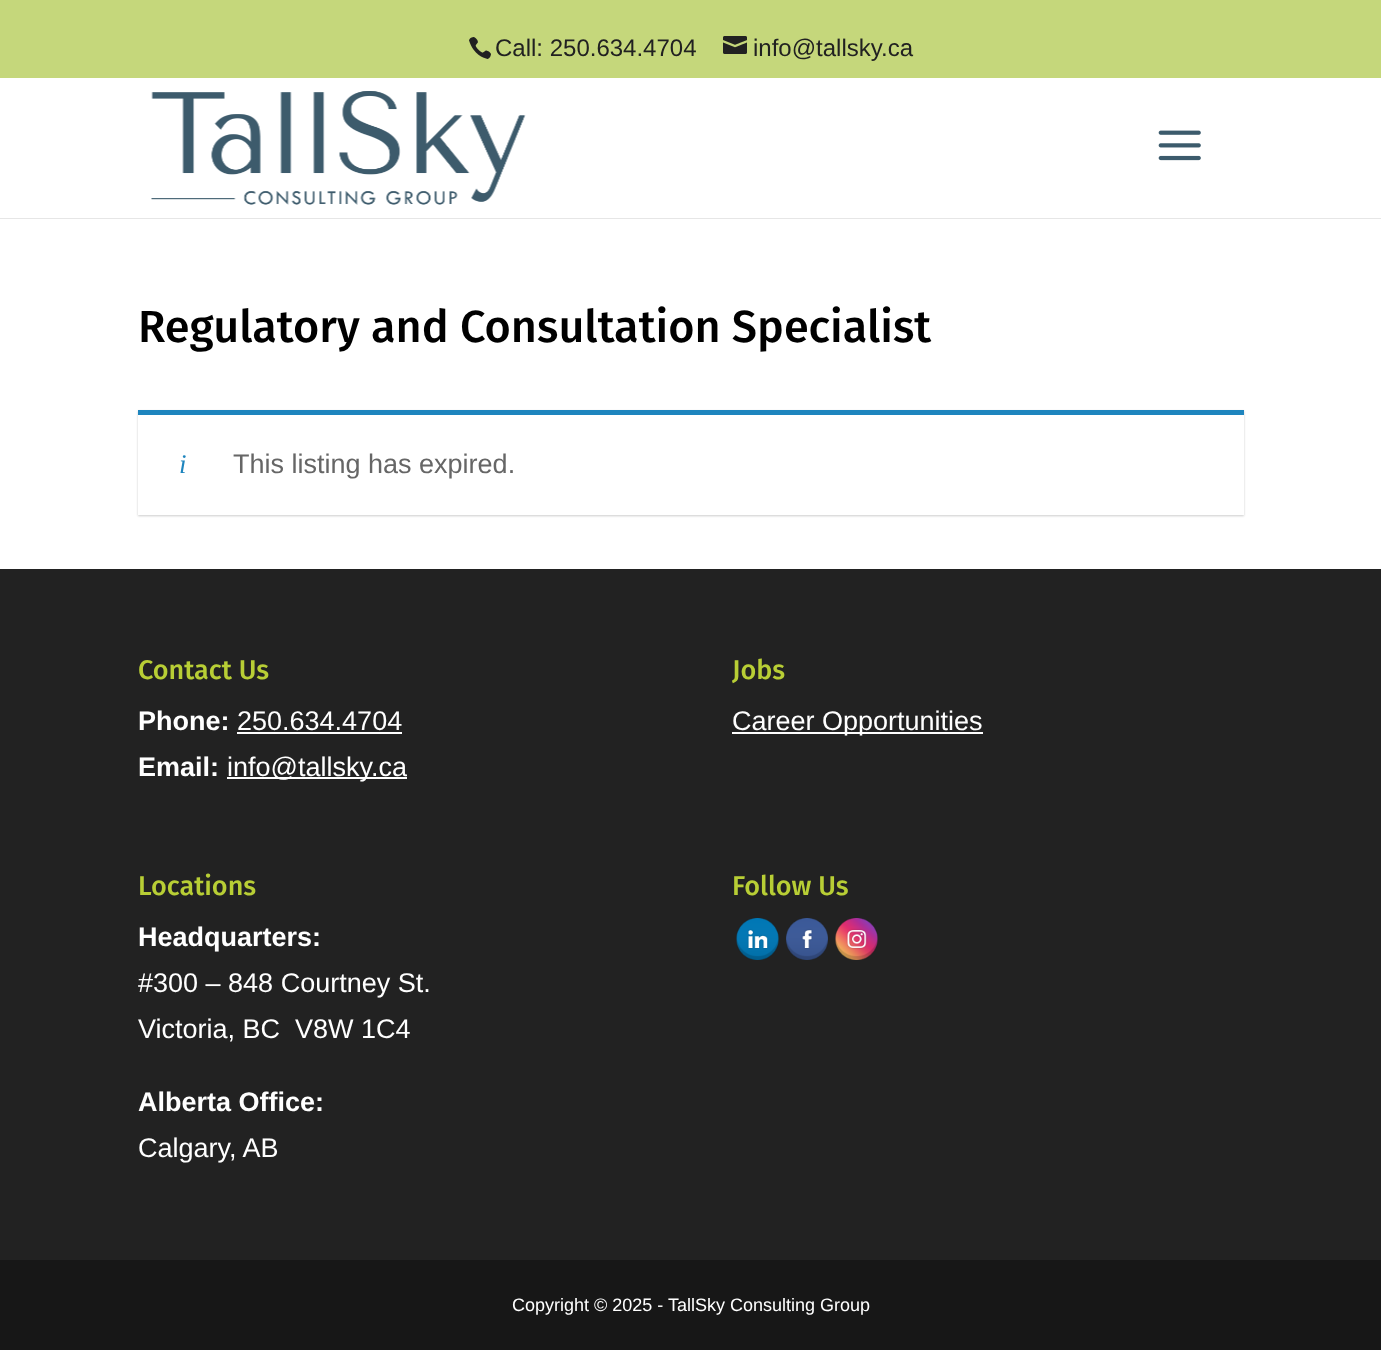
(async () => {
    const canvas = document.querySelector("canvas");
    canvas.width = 1381;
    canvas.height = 1372;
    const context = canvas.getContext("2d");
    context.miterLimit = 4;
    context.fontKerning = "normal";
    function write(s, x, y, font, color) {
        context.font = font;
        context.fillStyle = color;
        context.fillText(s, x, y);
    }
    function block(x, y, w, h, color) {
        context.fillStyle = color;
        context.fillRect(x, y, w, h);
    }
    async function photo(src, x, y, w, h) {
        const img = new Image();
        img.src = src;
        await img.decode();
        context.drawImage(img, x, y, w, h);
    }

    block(0, 0, 1381, 1372, "rgb(255, 255, 255)");
    block(0, 0, 1381, 78, "rgb(197, 215, 123)");
    await photo("media/1.png", 469, 37, 22, 22);
    write("Call: 250.634.4704", 495, 56, "24px Liberation Sans", "rgb(33, 33, 33)");
    await photo("media/2.png", 723, 36, 24, 18);
    write("info@tallsky.ca", 753, 56, "24px Liberation Sans", "rgb(33, 33, 33)");
    context.fillStyle = "rgb(230, 230, 230)";
    context.beginPath();
    context.moveTo(0, 218);
    context.lineTo(0, 219);
    context.lineTo(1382, 219);
    context.lineTo(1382, 80);
    context.lineTo(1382, 218);
    context.closePath();
    context.fill();
    await photo("media/3.png", 151, 91, 375, 114);
    await photo("media/4.png", 1158, 130, 43, 31);
    write("Regulatory and Consultation Specialist", 138, 342, "500 45px Fira Sans", "rgb(0, 0, 0)");
    context.fillStyle = "rgba(0, 0, 0, 0.2)";
    context.filter = "blur(1px)";
    context.beginPath();
    context.rect(138, 411, 1106, 105);
    context.fill();
    context.filter = "none";
    block(138, 415, 1106, 100, "rgb(255, 255, 255)");
    block(138, 410, 1106, 5, "rgb(30, 133, 190)");
    write("i", 179, 473, "italic 27px Liberation Serif", "rgb(30, 133, 190)");
    write("This listing has expired.", 233, 473, "27px Liberation Sans", "rgb(102, 102, 102)");
    block(0, 569, 1381, 691, "rgb(34, 34, 34)");
    write("Contact Us", 138, 679, "500 27px Fira Sans", "rgb(184, 206, 53)");
    write("Phone:", 138, 730, "bold 27px Liberation Sans", "rgb(255, 255, 255)");
    write("250.634.4704", 237, 730, "27px Liberation Sans", "rgb(255, 255, 255)");
    block(237, 732, 165, 2, "rgb(255, 255, 255)");
    write("Email:", 138, 776, "bold 27px Liberation Sans", "rgb(255, 255, 255)");
    block(227, 777, 180, 2, "rgb(255, 255, 255)");
    write("info@tallsky.ca", 227, 776, "27px Liberation Sans", "rgb(255, 255, 255)");
    write("Jobs", 732, 679, "500 27px Fira Sans", "rgb(184, 206, 53)");
    block(732, 732, 251, 2, "rgb(255, 255, 255)");
    write("Career Opportunities", 732, 730, "27px Liberation Sans", "rgb(255, 255, 255)");
    write("Locations", 138, 895, "500 27px Fira Sans", "rgb(184, 206, 53)");
    write("Headquarters:", 138, 946, "bold 27px Liberation Sans", "rgb(255, 255, 255)");
    write("#300 – 848 Courtney St.", 138, 992, "27px Liberation Sans", "rgb(255, 255, 255)");
    write("Victoria, BC  V8W 1C4", 138, 1038, "27px Liberation Sans", "rgb(255, 255, 255)");
    write("Alberta Office:", 138, 1111, "bold 27px Liberation Sans", "rgb(255, 255, 255)");
    write("Calgary, AB", 138, 1157, "27px Liberation Sans", "rgb(255, 255, 255)");
    write("Follow Us", 732, 895, "500 27px Fira Sans", "rgb(184, 206, 53)");
    await photo("media/5.png", 736, 918, 43, 42);
    await photo("media/6.png", 786, 918, 42, 42);
    await photo("media/7.png", 835, 918, 43, 42);
    block(0, 1260, 1381, 90, "rgb(23, 23, 23)");
    write("Copyright © 2025 - TallSky Consulting Group", 512, 1311, "18px Liberation Sans", "rgb(255, 255, 255)");
})();
